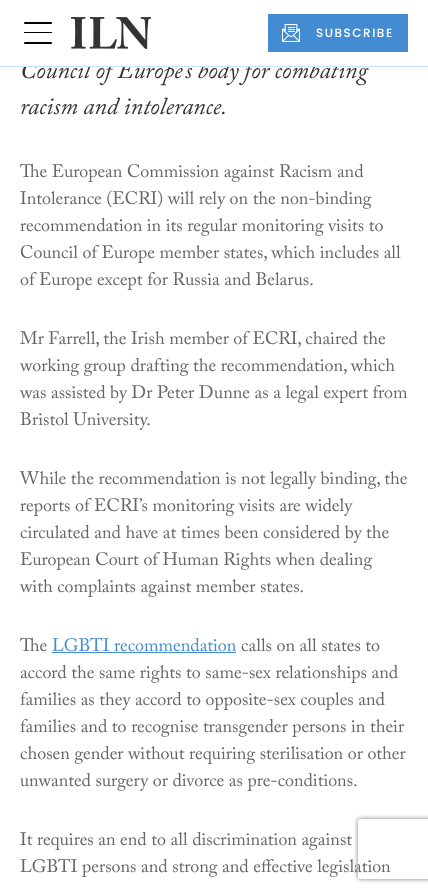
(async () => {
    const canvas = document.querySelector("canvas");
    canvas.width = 428;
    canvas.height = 893;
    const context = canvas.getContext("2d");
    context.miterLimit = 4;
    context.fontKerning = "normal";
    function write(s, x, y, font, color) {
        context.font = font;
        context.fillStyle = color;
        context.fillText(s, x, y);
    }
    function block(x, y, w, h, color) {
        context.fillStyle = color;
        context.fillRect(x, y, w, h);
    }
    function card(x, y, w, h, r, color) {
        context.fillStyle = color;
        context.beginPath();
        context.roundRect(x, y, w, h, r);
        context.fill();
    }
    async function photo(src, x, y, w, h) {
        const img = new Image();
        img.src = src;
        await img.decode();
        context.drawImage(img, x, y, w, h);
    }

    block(0, 0, 428, 893, "rgb(255, 255, 255)");
    write("Council of Europe’s body for combating", 20, 78, "italic 24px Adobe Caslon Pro", "rgb(51, 51, 51)");
    block(24, 61, 322, 5, "rgb(255, 255, 255)");
    block(0, 66, 428, 1, "rgb(198, 226, 253)");
    card(24, 22, 28, 2, 1, "rgb(0, 0, 0)");
    card(24, 32, 28, 1, 0.5, "rgb(0, 0, 0)");
    card(24, 42, 28, 2, 1, "rgb(0, 0, 0)");
    await photo("media/1.png", 71, 17, 80, 32);
    block(268, 14, 140, 38, "rgb(67, 140, 209)");
    await photo("media/2.png", 282, 24, 18, 18);
    context.letterSpacing = "1.5px";
    write("SUBSCRIBE", 316, 37, "500 12px Poppins", "rgb(255, 255, 255)");
    context.letterSpacing = "0px";
    write("racism and intolerance.", 20, 114, "italic 24px Adobe Caslon Pro", "rgb(51, 51, 51)");
    write("The European Commission against Racism and", 20, 177, "18px Adobe Caslon Pro", "rgb(102, 102, 102)");
    write("Intolerance (ECRI) will rely on the non-binding", 20, 204, "18px Adobe Caslon Pro", "rgb(102, 102, 102)");
    write("recommendation in its regular monitoring visits to", 20, 231, "18px Adobe Caslon Pro", "rgb(102, 102, 102)");
    write("Council of Europe member states, which includes all", 20, 258, "18px Adobe Caslon Pro", "rgb(102, 102, 102)");
    write("of Europe except for Russia and Belarus.", 20, 285, "18px Adobe Caslon Pro", "rgb(102, 102, 102)");
    write("Mr Farrell, the Irish member of ECRI, chaired the", 20, 344, "18px Adobe Caslon Pro", "rgb(102, 102, 102)");
    write("working group drafting the recommendation, which", 20, 371, "18px Adobe Caslon Pro", "rgb(102, 102, 102)");
    write("was assisted by Dr Peter Dunne as a legal expert from", 20, 398, "18px Adobe Caslon Pro", "rgb(102, 102, 102)");
    write("Bristol University.", 20, 425, "18px Adobe Caslon Pro", "rgb(102, 102, 102)");
    write("While the recommendation is not legally binding, the", 20, 484, "18px Adobe Caslon Pro", "rgb(102, 102, 102)");
    write("reports of ECRI’s monitoring visits are widely", 20, 511, "18px Adobe Caslon Pro", "rgb(102, 102, 102)");
    write("circulated and have at times been considered by the", 20, 538, "18px Adobe Caslon Pro", "rgb(102, 102, 102)");
    write("European Court of Human Rights when dealing", 20, 565, "18px Adobe Caslon Pro", "rgb(102, 102, 102)");
    write("with complaints against member states.", 20, 592, "18px Adobe Caslon Pro", "rgb(102, 102, 102)");
    write("The", 20, 651, "18px Adobe Caslon Pro", "rgb(102, 102, 102)");
    write("LGBTI recommendation", 52, 651, "18px Adobe Caslon Pro", "rgb(67, 140, 209)");
    block(52, 652, 184, 1, "rgb(67, 140, 209)");
    write("calls on all states to", 241, 651, "18px Adobe Caslon Pro", "rgb(102, 102, 102)");
    write("accord the same rights to same-sex relationships and", 20, 678, "18px Adobe Caslon Pro", "rgb(102, 102, 102)");
    write("families as they accord to opposite-sex couples and", 20, 705, "18px Adobe Caslon Pro", "rgb(102, 102, 102)");
    write("families and to recognise transgender persons in their", 20, 732, "18px Adobe Caslon Pro", "rgb(102, 102, 102)");
    write("chosen gender without requiring sterilisation or other", 20, 759, "18px Adobe Caslon Pro", "rgb(102, 102, 102)");
    write("unwanted surgery or divorce as pre-conditions.", 20, 786, "18px Adobe Caslon Pro", "rgb(102, 102, 102)");
    write("It requires an end to all discrimination against", 20, 845, "18px Adobe Caslon Pro", "rgb(102, 102, 102)");
    write("LGBTI persons and strong and effective legislation", 20, 872, "18px Adobe Caslon Pro", "rgb(102, 102, 102)");
    context.save();
    context.beginPath();
    context.moveTo(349, 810);
    context.lineTo(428, 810);
    context.lineTo(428, 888);
    context.lineTo(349, 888);
    context.closePath();
    context.moveTo(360, 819);
    context.lineTo(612, 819);
    context.bezierCurveTo(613, 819, 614, 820, 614, 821);
    context.lineTo(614, 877);
    context.bezierCurveTo(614, 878, 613, 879, 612, 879);
    context.lineTo(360, 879);
    context.bezierCurveTo(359, 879, 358, 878, 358, 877);
    context.lineTo(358, 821);
    context.bezierCurveTo(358, 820, 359, 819, 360, 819);
    context.closePath();
    context.clip("evenodd");
    context.fillStyle = "rgb(128, 128, 128)";
    context.filter = "blur(2.5px)";
    context.beginPath();
    context.roundRect(358, 819, 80, 60, 2);
    context.fill();
    context.filter = "none";
    context.restore();
})();
